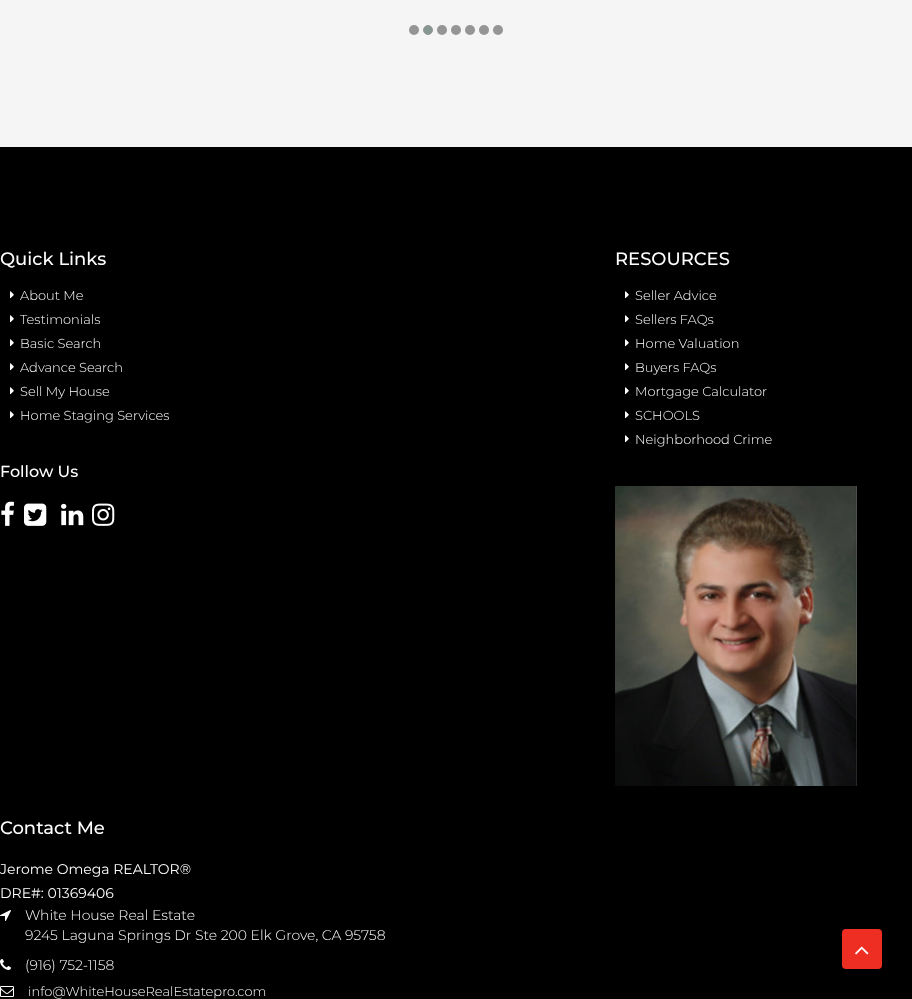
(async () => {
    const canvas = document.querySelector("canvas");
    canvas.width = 912;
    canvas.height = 999;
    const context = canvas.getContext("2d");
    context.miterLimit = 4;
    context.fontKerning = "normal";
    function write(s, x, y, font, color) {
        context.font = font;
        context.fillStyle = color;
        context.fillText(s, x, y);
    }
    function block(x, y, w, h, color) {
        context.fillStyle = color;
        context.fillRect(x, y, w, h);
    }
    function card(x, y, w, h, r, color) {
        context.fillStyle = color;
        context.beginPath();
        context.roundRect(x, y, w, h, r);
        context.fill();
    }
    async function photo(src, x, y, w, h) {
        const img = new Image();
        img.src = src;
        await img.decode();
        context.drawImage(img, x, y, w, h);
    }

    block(0, 0, 912, 999, "rgb(245, 245, 245)");
    context.fillStyle = "rgb(149, 149, 149)";
    context.beginPath();
    context.arc(414, 30, 5, 0, Math.PI * 2);
    context.fill();
    context.fillStyle = "rgb(134, 151, 145)";
    context.beginPath();
    context.arc(428, 30, 4.5, 0, Math.PI * 2);
    context.fill();
    context.strokeStyle = "rgb(149, 149, 149)";
    context.stroke();
    context.fillStyle = "rgb(149, 149, 149)";
    context.beginPath();
    context.arc(442, 30, 5, 0, Math.PI * 2);
    context.fill();
    context.beginPath();
    context.arc(456, 30, 5, 0, Math.PI * 2);
    context.fill();
    context.beginPath();
    context.arc(470, 30, 5, 0, Math.PI * 2);
    context.fill();
    context.beginPath();
    context.arc(484, 30, 5, 0, Math.PI * 2);
    context.fill();
    context.beginPath();
    context.arc(498, 30, 5, 0, Math.PI * 2);
    context.fill();
    block(0, 147, 912, 852, "rgb(0, 0, 0)");
    write("Quick Links", 0, 265, "500 18px Montserrat", "rgb(255, 255, 255)");
    await photo("media/1.png", 10, 291, 4, 8);
    write("About Me", 20, 300, "300 13px Montserrat", "rgb(255, 255, 255)");
    await photo("media/1.png", 10, 315, 4, 8);
    write("Testimonials", 20, 324, "300 13px Montserrat", "rgb(255, 255, 255)");
    await photo("media/1.png", 10, 339, 4, 8);
    write("Basic Search", 20, 348, "300 13px Montserrat", "rgb(255, 255, 255)");
    await photo("media/1.png", 10, 363, 4, 8);
    write("Advance Search", 20, 372, "300 13px Montserrat", "rgb(255, 255, 255)");
    await photo("media/1.png", 10, 387, 4, 8);
    write("Sell My House", 20, 396, "300 13px Montserrat", "rgb(255, 255, 255)");
    await photo("media/1.png", 10, 411, 4, 8);
    write("Home Staging Services", 20, 420, "300 13px Montserrat", "rgb(255, 255, 255)");
    write("Follow Us", 0, 477, "500 16px Montserrat", "rgb(255, 255, 255)");
    await photo("media/2.png", 1, 501, 13, 25);
    await photo("media/3.png", 24, 503, 23, 23);
    await photo("media/4.png", 61, 503, 23, 23);
    await photo("media/5.png", 92, 503, 23, 23);
    write("RESOURCES", 615, 265, "500 18px Montserrat", "rgb(255, 255, 255)");
    await photo("media/1.png", 625, 291, 4, 8);
    write("Seller Advice", 635, 300, "300 13px Montserrat", "rgb(255, 255, 255)");
    await photo("media/1.png", 625, 315, 4, 8);
    write("Sellers FAQs", 635, 324, "300 13px Montserrat", "rgb(255, 255, 255)");
    await photo("media/1.png", 625, 339, 4, 8);
    write("Home Valuation", 635, 348, "300 13px Montserrat", "rgb(255, 255, 255)");
    await photo("media/1.png", 625, 363, 4, 8);
    write("Buyers FAQs", 635, 372, "300 13px Montserrat", "rgb(255, 255, 255)");
    await photo("media/1.png", 625, 387, 4, 8);
    write("Mortgage Calculator", 635, 396, "300 13px Montserrat", "rgb(255, 255, 255)");
    await photo("media/1.png", 625, 411, 4, 8);
    write("SCHOOLS", 635, 420, "300 13px Montserrat", "rgb(255, 255, 255)");
    await photo("media/1.png", 625, 435, 4, 8);
    write("Neighborhood Crime", 635, 444, "300 13px Montserrat", "rgb(255, 255, 255)");
    await photo("media/6.png", 615, 486, 242, 300);
    write("Contact Me", 0, 834, "500 18px Montserrat", "rgb(255, 255, 255)");
    write("Jerome Omega REALTOR®", 0, 874, "14px Montserrat", "rgb(255, 255, 255)");
    write("DRE#: 01369406", 0, 898, "14px Montserrat", "rgb(255, 255, 255)");
    await photo("media/7.png", 0, 910, 11, 11);
    write("White House Real Estate", 25, 920, "300 14px Montserrat", "rgb(255, 255, 255)");
    write("9245 Laguna Springs Dr Ste 200 Elk Grove, CA 95758", 25, 940, "300 14px Montserrat", "rgb(255, 255, 255)");
    await photo("media/8.png", 0, 959, 11, 11);
    write("(916) 752-1158", 25, 970, "300 14px Montserrat", "rgb(255, 255, 255)");
    await photo("media/9.png", 0, 986, 14, 11);
    write("info@WhiteHouseRealEstatepro.com", 28, 996, "300 13px Montserrat", "rgb(255, 255, 255)");
    card(842, 929, 40, 40, 4, "rgb(238, 46, 35)");
    await photo("media/10.png", 855, 946, 14, 9);
})();
